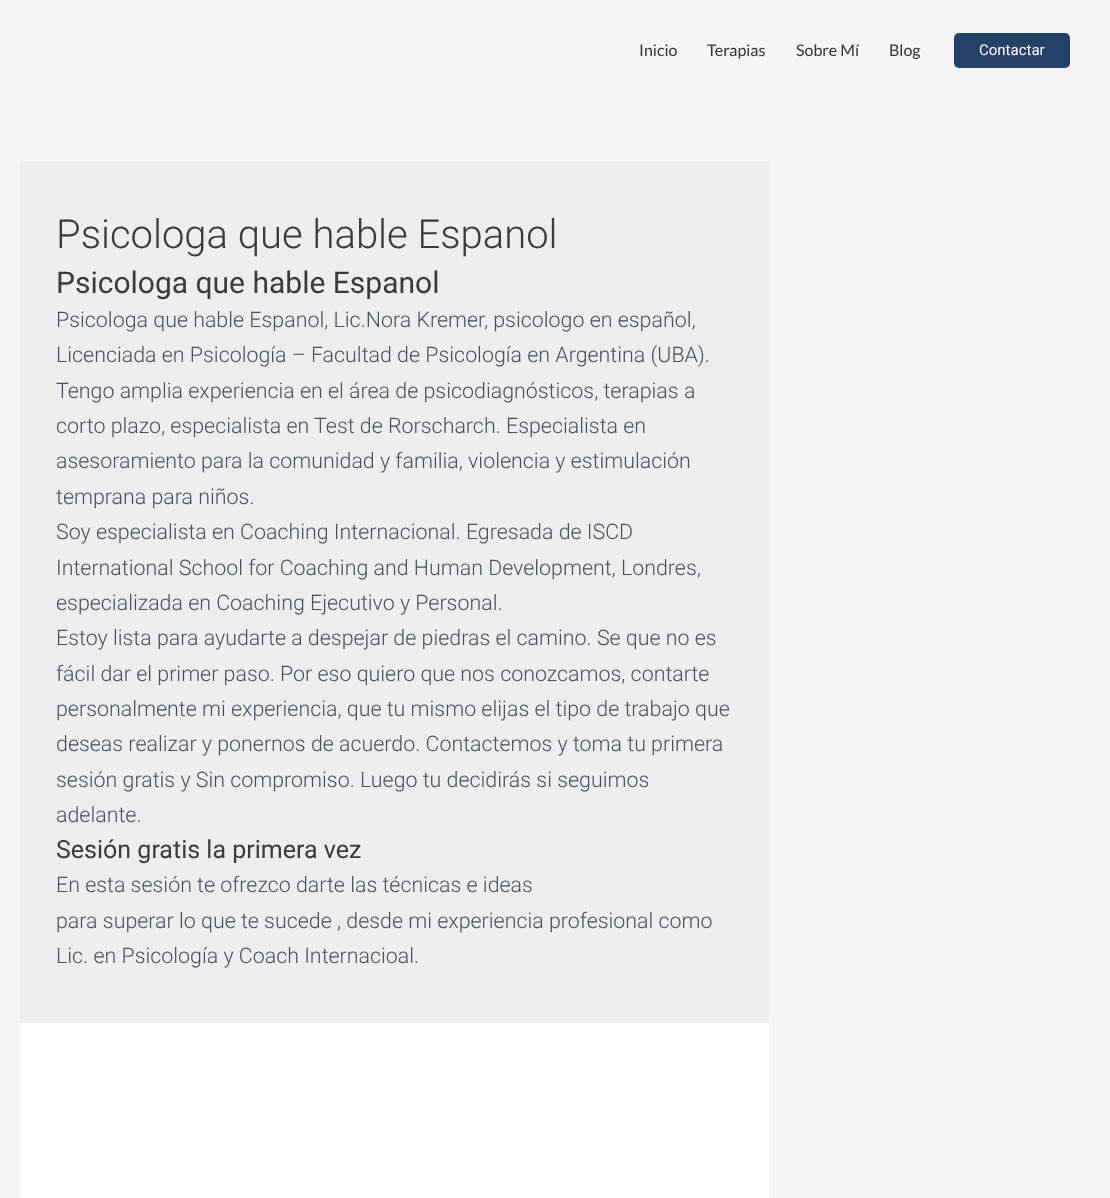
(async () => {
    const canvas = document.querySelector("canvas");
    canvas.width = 1110;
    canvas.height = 1198;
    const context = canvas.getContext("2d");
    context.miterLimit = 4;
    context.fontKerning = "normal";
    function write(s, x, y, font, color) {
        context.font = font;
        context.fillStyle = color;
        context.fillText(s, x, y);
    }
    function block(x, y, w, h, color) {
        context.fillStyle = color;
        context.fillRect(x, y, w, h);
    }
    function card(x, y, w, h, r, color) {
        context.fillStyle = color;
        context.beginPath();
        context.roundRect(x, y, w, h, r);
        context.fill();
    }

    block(0, 0, 1110, 1198, "rgb(245, 245, 245)");
    write("Inicio", 639, 56, "16px Lato", "rgb(51, 51, 51)");
    write("Terapias", 707, 56, "16px Lato", "rgb(51, 51, 51)");
    write("Sobre Mí", 796, 56, "16px Lato", "rgb(51, 51, 51)");
    write("Blog", 889, 56, "16px Lato", "rgb(51, 51, 51)");
    card(954, 33, 116, 35, 5, "rgb(37, 65, 103)");
    write("Contactar", 979, 55, "15px Roboto", "rgb(255, 255, 255)");
    block(20, 161, 749, 862, "rgb(238, 238, 238)");
    write("Psicologa que hable Espanol", 56, 248, "300 40px Roboto", "rgb(58, 58, 58)");
    write("Psicologa que hable Espanol", 56, 293, "30px Roboto", "rgb(58, 58, 58)");
    write("Psicologa que hable Espanol, Lic.Nora Kremer, psicologo en español,", 56, 327, "300 21.4px Roboto", "rgb(75, 79, 88)");
    write("Licenciada en Psicología – Facultad de Psicología en Argentina (UBA).", 56, 362, "300 21.4px Roboto", "rgb(75, 79, 88)");
    write("Tengo amplia experiencia en el área de psicodiagnósticos, terapias a", 56, 398, "300 21.4px Roboto", "rgb(75, 79, 88)");
    write("corto plazo, especialista en Test de Rorscharch. Especialista en", 56, 433, "300 21.4px Roboto", "rgb(75, 79, 88)");
    write("asesoramiento para la comunidad y familia, violencia y estimulación", 56, 468, "300 21.4px Roboto", "rgb(75, 79, 88)");
    write("temprana para niños.", 56, 504, "300 21.4px Roboto", "rgb(75, 79, 88)");
    write("Soy especialista en Coaching Internacional. Egresada de ISCD", 56, 539, "300 21.4px Roboto", "rgb(75, 79, 88)");
    write("International School for Coaching and Human Development, Londres,", 56, 575, "300 21.4px Roboto", "rgb(75, 79, 88)");
    write("especializada en Coaching Ejecutivo y Personal.", 56, 610, "300 21.4px Roboto", "rgb(75, 79, 88)");
    write("Estoy lista para ayudarte a despejar de piedras el camino. Se que no es", 56, 645, "300 21.4px Roboto", "rgb(75, 79, 88)");
    write("fácil dar el primer paso. Por eso quiero que nos conozcamos, contarte", 56, 681, "300 21.4px Roboto", "rgb(75, 79, 88)");
    write("personalmente mi experiencia, que tu mismo elijas el tipo de trabajo que", 56, 716, "300 21.4px Roboto", "rgb(75, 79, 88)");
    write("deseas realizar y ponernos de acuerdo. Contactemos y toma tu primera", 56, 751, "300 21.4px Roboto", "rgb(75, 79, 88)");
    write("sesión gratis y Sin compromiso. Luego tu decidirás si seguimos", 56, 787, "300 21.4px Roboto", "rgb(75, 79, 88)");
    write("adelante.", 56, 822, "300 21.4px Roboto", "rgb(75, 79, 88)");
    write("Sesión gratis la primera vez", 56, 858, "25px Roboto", "rgb(58, 58, 58)");
    write("En esta sesión te ofrezco darte las técnicas e ideas", 56, 892, "300 21.4px Roboto", "rgb(75, 79, 88)");
    write("para superar lo que te sucede , desde mi experiencia profesional como", 56, 928, "300 21.4px Roboto", "rgb(75, 79, 88)");
    write("Lic. en Psicología y Coach Internacioal.", 56, 963, "300 21.4px Roboto", "rgb(75, 79, 88)");
    block(20, 1023, 749, 175, "rgb(255, 255, 255)");
})();
